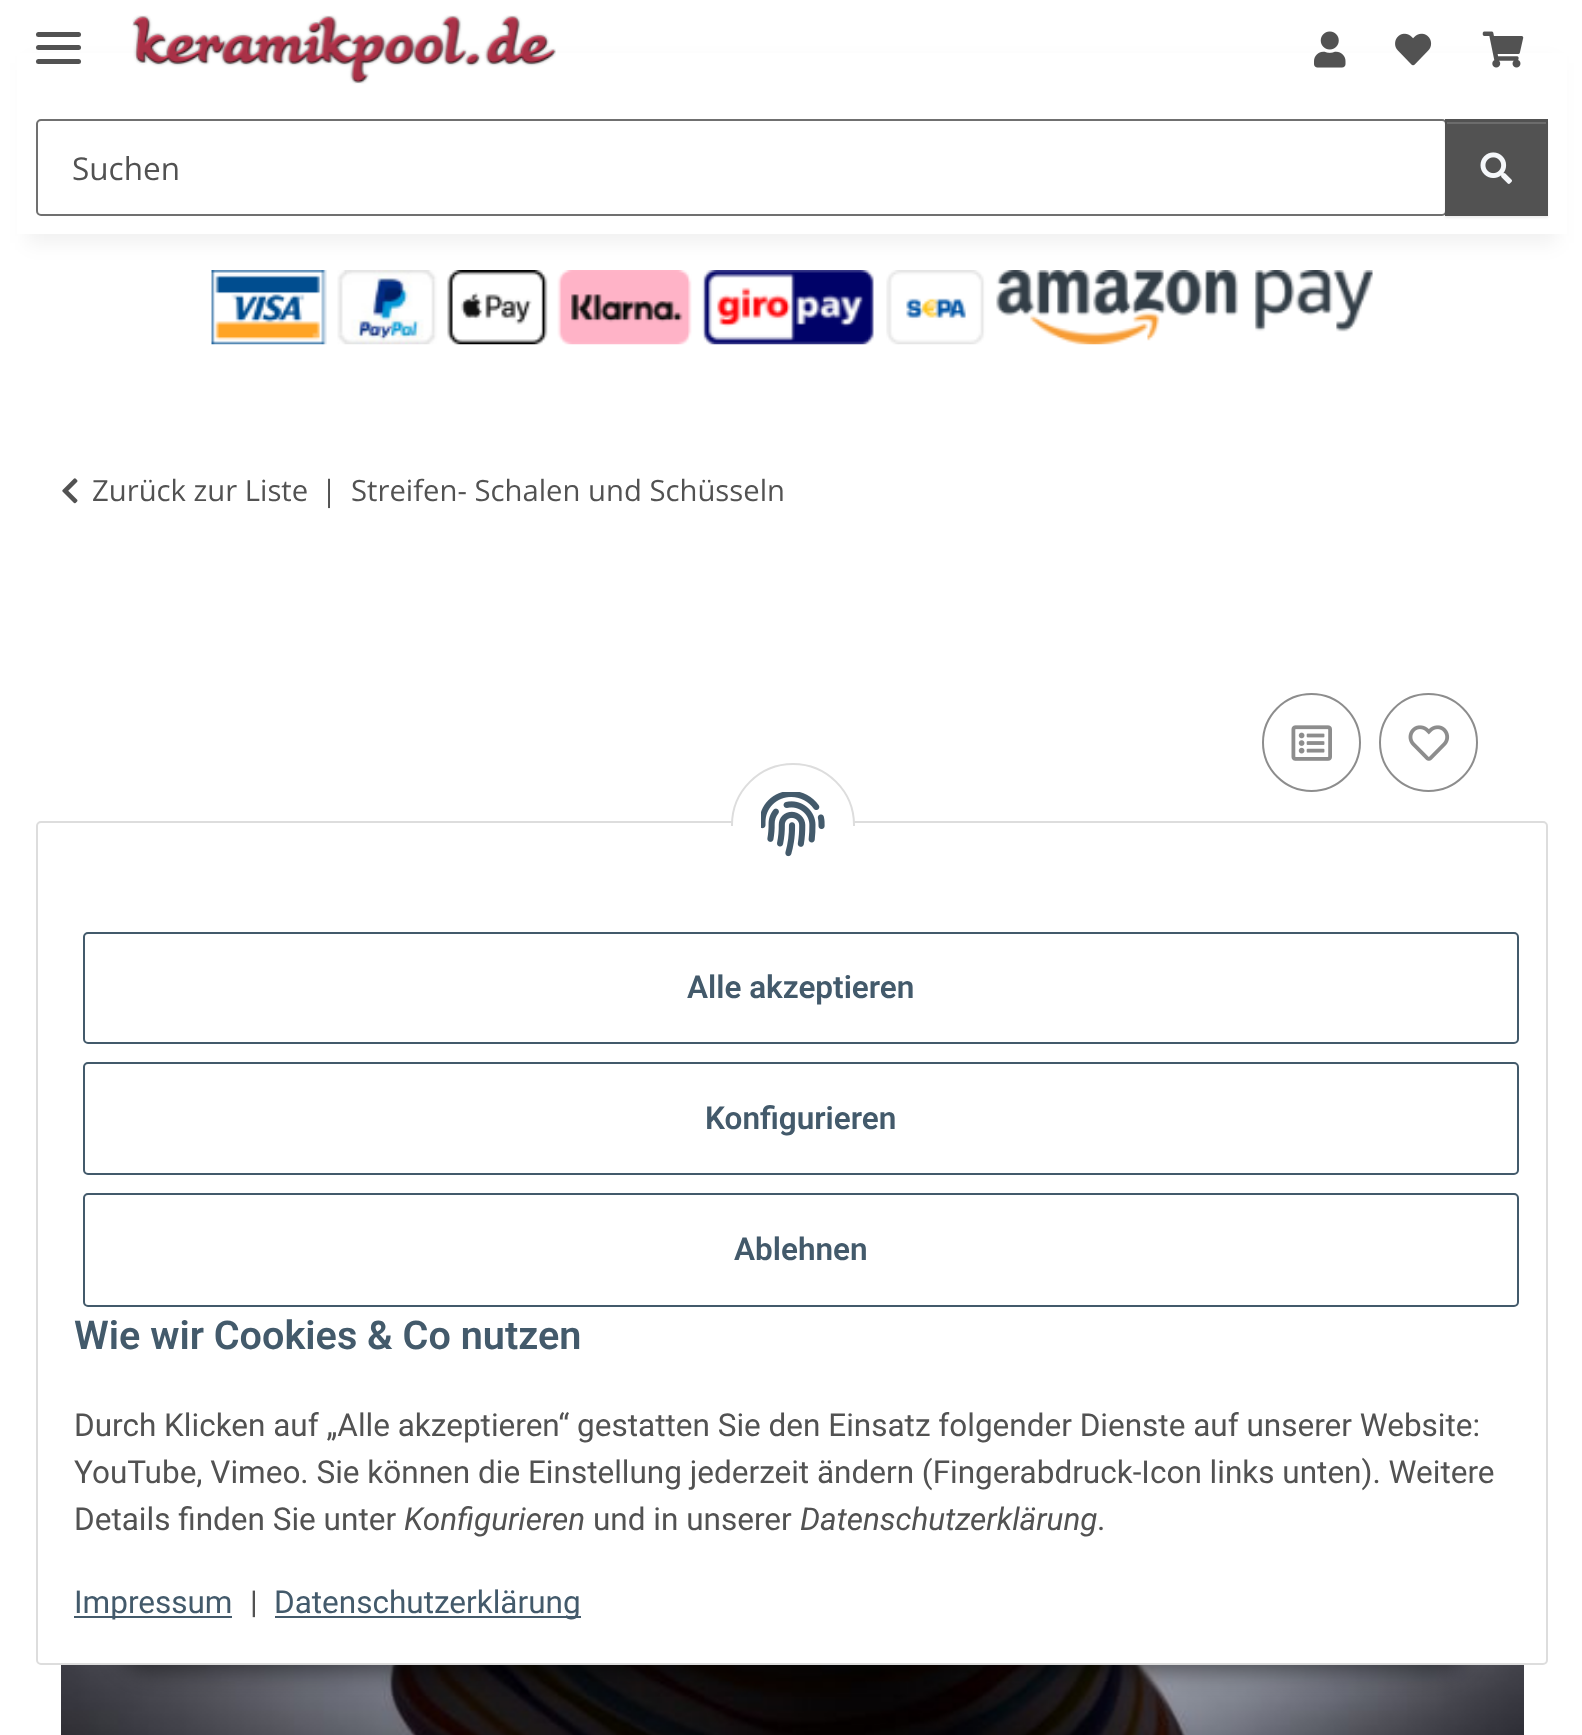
(async () => {
    const canvas = document.querySelector("canvas");
    canvas.width = 1582;
    canvas.height = 1735;
    const context = canvas.getContext("2d");
    context.miterLimit = 4;
    context.fontKerning = "normal";
    function write(s, x, y, font, color) {
        context.font = font;
        context.fillStyle = color;
        context.fillText(s, x, y);
    }
    function block(x, y, w, h, color) {
        context.fillStyle = color;
        context.fillRect(x, y, w, h);
    }
    function card(x, y, w, h, r, color) {
        context.fillStyle = color;
        context.beginPath();
        context.roundRect(x, y, w, h, r);
        context.fill();
    }
    async function photo(src, x, y, w, h) {
        const img = new Image();
        img.src = src;
        await img.decode();
        context.drawImage(img, x, y, w, h);
    }

    block(0, 0, 1582, 1735, "rgb(255, 255, 255)");
    await photo("media/6.png", 211, 270, 1162, 75);
    context.fillStyle = "rgba(0, 0, 0, 0.06)";
    context.filter = "blur(10px)";
    context.beginPath();
    context.rect(27, 63, 1530, 180);
    context.fill();
    context.filter = "none";
    block(17, 53, 1550, 181, "rgb(255, 255, 255)");
    card(36, 45, 45, 5, 2.5, "rgb(82, 82, 82)");
    card(36, 32, 45, 5, 2.5, "rgb(82, 82, 82)");
    card(36, 59, 45, 5, 2.5, "rgb(82, 82, 82)");
    await photo("media/1.png", 132, 15, 424, 69);
    await photo("media/2.png", 1314, 31, 32, 37);
    await photo("media/3.png", 1395, 33, 37, 33);
    await photo("media/4.png", 1482, 31, 42, 37);
    context.beginPath();
    context.roundRect(37, 120, 1409, 95, 4);
    context.strokeStyle = "rgb(112, 112, 112)";
    context.lineWidth = 2;
    context.stroke();
    write("Suchen", 72, 180, "31.5px Open Sans", "rgb(82, 82, 82)");
    context.fillStyle = "rgba(0, 0, 0, 0.07)";
    context.filter = "blur(1px)";
    context.beginPath();
    context.rect(1445, 122, 103, 96);
    context.fill();
    context.filter = "none";
    block(1445, 119, 103, 97, "rgb(82, 82, 82)");
    block(1447, 122, 99, 2, "rgb(108, 108, 108)");
    await photo("media/5.png", 1480, 152, 32, 32);
    await photo("media/7.png", 62, 478, 16, 26);
    write("Zurück zur Liste", 92, 501, "29.25px Open Sans", "rgb(82, 82, 82)");
    write("|", 321, 501, "29.25px Open Sans", "rgb(82, 82, 82)");
    write("Streifen- Schalen und Schüsseln", 351, 501, "29.25px Open Sans", "rgb(82, 82, 82)");
    context.beginPath();
    context.arc(1311.5, 742.5, 48.5, 0, Math.PI * 2);
    context.strokeStyle = "rgb(141, 141, 141)";
    context.stroke();
    await photo("media/8.png", 1291, 725, 41, 36);
    context.beginPath();
    context.arc(1428.5, 742.5, 48.5, 0, Math.PI * 2);
    context.stroke();
    await photo("media/9.png", 1408, 725, 42, 36);
    await photo("media/10.png", 61, 1665, 1463, 70);
    context.fillStyle = "rgba(0, 0, 0, 0.45)";
    context.filter = "blur(11px)";
    context.beginPath();
    context.roundRect(115, 1600, 1357, 72, 36);
    context.fill();
    context.filter = "none";
    context.fillStyle = "rgb(255, 255, 255)";
    context.beginPath();
    context.roundRect(37, 822, 1510, 842, 4);
    context.fill();
    context.strokeStyle = "rgb(221, 221, 221)";
    context.stroke();
    context.beginPath();
    context.arc(793, 825, 61, 0, Math.PI * 2);
    context.fill();
    context.stroke();
    block(731, 826, 124, 61, "rgb(255, 255, 255)");
    await photo("media/11.png", 761, 792, 64, 65);
    context.beginPath();
    context.roundRect(84, 933, 1434, 110, 4);
    context.strokeStyle = "rgb(67, 90, 107)";
    context.stroke();
    write("Alle akzeptieren", 687, 998, "600 31.5px Roboto", "rgb(67, 90, 107)");
    context.beginPath();
    context.roundRect(84, 1063, 1434, 111, 4);
    context.stroke();
    write("Konfigurieren", 705, 1129, "600 31.5px Roboto", "rgb(67, 90, 107)");
    context.beginPath();
    context.roundRect(84, 1194, 1434, 112, 4);
    context.stroke();
    write("Ablehnen", 734, 1260, "600 31.5px Roboto", "rgb(67, 90, 107)");
    write("Wie wir Cookies & Co nutzen", 74, 1349, "600 39.6px Roboto", "rgb(67, 90, 107)");
    write("Durch Klicken auf „Alle akzeptieren“ gestatten Sie den Einsatz folgender Dienste auf unserer Website:", 74, 1436, "31.5px Roboto", "rgb(82, 82, 82)");
    write("YouTube, Vimeo. Sie können die Einstellung jederzeit ändern (Fingerabdruck-Icon links unten). Weitere", 74, 1483, "31.5px Roboto", "rgb(82, 82, 82)");
    write("Details finden Sie unter", 74, 1530, "31.5px Roboto", "rgb(82, 82, 82)");
    write("Konfigurieren", 404, 1530, "italic 31.5px Roboto", "rgb(82, 82, 82)");
    write("und in unserer", 593, 1530, "31.5px Roboto", "rgb(82, 82, 82)");
    write("Datenschutzerklärung", 800, 1530, "italic 31.5px Roboto", "rgb(82, 82, 82)");
    write(".", 1097, 1530, "31.5px Roboto", "rgb(82, 82, 82)");
    block(74, 1616, 158, 2, "rgb(67, 90, 107)");
    write("Impressum", 74, 1613, "31.5px Roboto", "rgb(67, 90, 107)");
    write("|", 250, 1613, "31.5px Roboto", "rgb(82, 82, 82)");
    block(275, 1616, 306, 2, "rgb(67, 90, 107)");
    write("Datenschutzerklärung", 274, 1613, "31.5px Roboto", "rgb(67, 90, 107)");
})();
